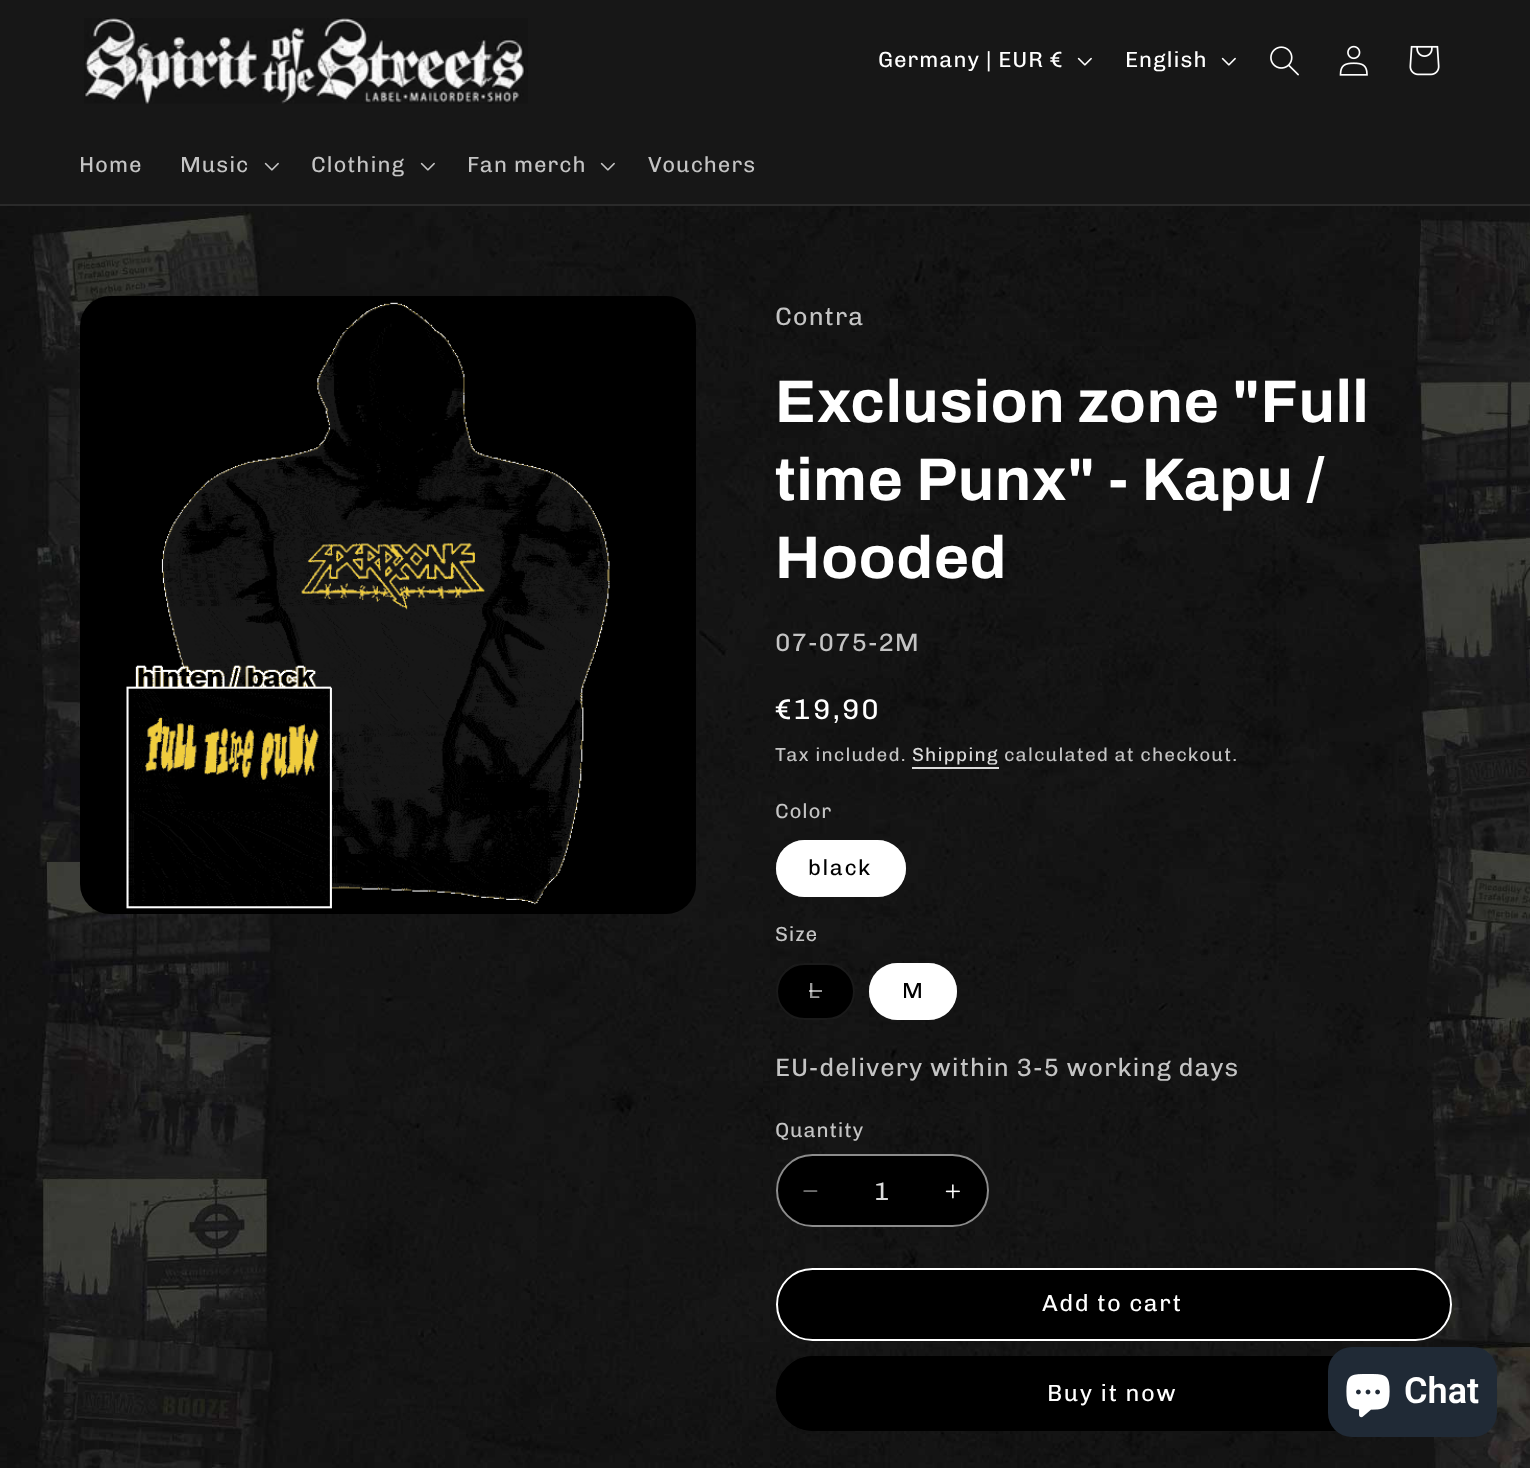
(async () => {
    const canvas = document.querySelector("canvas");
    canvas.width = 1530;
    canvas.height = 1468;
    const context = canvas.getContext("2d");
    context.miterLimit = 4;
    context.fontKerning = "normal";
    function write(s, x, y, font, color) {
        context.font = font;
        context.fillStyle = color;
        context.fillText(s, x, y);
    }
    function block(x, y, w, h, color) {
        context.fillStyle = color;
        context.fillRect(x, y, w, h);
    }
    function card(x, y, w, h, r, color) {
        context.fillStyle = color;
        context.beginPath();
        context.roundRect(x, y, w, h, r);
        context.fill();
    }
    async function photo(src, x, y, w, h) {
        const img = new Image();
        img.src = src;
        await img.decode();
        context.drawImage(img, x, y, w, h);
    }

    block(0, 0, 1530, 1468, "rgb(255, 255, 255)");
    await photo("media/1.png", 0, 206, 1530, 1262);
    await photo("media/2.png", 1529, 206, 1, 1262);
    block(0, 0, 1530, 204, "rgb(23, 23, 23)");
    block(0, 204, 1530, 2, "rgb(42, 42, 42)");
    await photo("media/3.png", 84, 18, 444, 86);
    context.letterSpacing = "0.95px";
    write("Germany | EUR €", 878, 67, "22px Chivo", "rgb(255, 255, 255)");
    await photo("media/4.png", 1077, 57, 15, 9);
    write("English", 1125, 67, "22px Chivo", "rgb(255, 255, 255)");
    await photo("media/4.png", 1221, 57, 15, 9);
    await photo("media/5.png", 1270, 46, 29, 30);
    await photo("media/6.png", 1339, 45, 29, 31);
    await photo("media/7.png", 1409, 45, 31, 31);
    write("Home", 79, 172, "22px Chivo", "rgb(196, 196, 196)");
    write("Music", 180, 172, "22px Chivo", "rgb(196, 196, 196)");
    await photo("media/8.png", 264, 162, 15, 9);
    write("Clothing", 311, 172, "22px Chivo", "rgb(196, 196, 196)");
    await photo("media/8.png", 420, 162, 15, 9);
    write("Fan merch", 467, 172, "22px Chivo", "rgb(196, 196, 196)");
    await photo("media/8.png", 600, 162, 15, 9);
    write("Vouchers", 648, 172, "22px Chivo", "rgb(196, 196, 196)");
    await photo("media/9.png", 1529, 206, 1, 1262);
    card(80, 296, 616, 618, 30, "rgb(0, 0, 0)");
    await photo("media/10.png", 126, 302, 484, 607);
    write("Contra", 775, 325, "25.25px Chivo", "rgb(196, 196, 196)");
    context.letterSpacing = "0.9px";
    write("Exclusion zone \"Full", 775, 422, "bold 60px Archivo", "rgb(255, 255, 255)");
    write("time Punx\" - Kapu /", 775, 500, "bold 60px Archivo", "rgb(255, 255, 255)");
    write("Hooded", 775, 578, "bold 60px Archivo", "rgb(255, 255, 255)");
    context.letterSpacing = "0.95px";
    write("07-075-2M", 775, 651, "25.25px Chivo", "rgb(196, 196, 196)");
    context.letterSpacing = "2px";
    write("€19,90", 775, 719, "28.5px Chivo", "rgb(255, 255, 255)");
    context.letterSpacing = "1.1px";
    write("Tax included.", 775, 761, "18.9px Chivo", "rgb(196, 196, 196)");
    write("Shipping", 912, 761, "18.9px Chivo", "rgb(220, 220, 220)");
    block(912, 767, 87, 2, "rgba(255, 255, 255, 0.85)");
    write("calculated at checkout.", 1004, 761, "18.9px Chivo", "rgb(196, 196, 196)");
    context.letterSpacing = "0.75px";
    write("Color", 775, 818, "20.5px Chivo", "rgb(196, 196, 196)");
    card(776, 840, 130, 57, 28.5, "rgb(255, 255, 255)");
    context.beginPath();
    context.roundRect(777, 841, 128, 55, 27.5);
    context.strokeStyle = "rgba(255, 255, 255, 0.55)";
    context.lineWidth = 2;
    context.stroke();
    context.letterSpacing = "1.5px";
    write("black", 808, 875, "22px Chivo", "rgb(0, 0, 0)");
    context.letterSpacing = "0.75px";
    write("Size", 775, 941, "20.5px Chivo", "rgb(196, 196, 196)");
    card(776, 963, 79, 57, 28.5, "rgb(0, 0, 0)");
    context.beginPath();
    context.roundRect(777, 964, 77, 55, 27.5);
    context.strokeStyle = "rgba(255, 255, 255, 0.1)";
    context.stroke();
    context.letterSpacing = "1.5px";
    write("L", 808, 998, "22px Chivo", "rgb(153, 153, 153)");
    block(809, 990, 13, 2, "rgba(255, 255, 255, 0.6)");
    card(869, 963, 88, 57, 28.5, "rgb(255, 255, 255)");
    context.beginPath();
    context.roundRect(870, 964, 86, 55, 27.5);
    context.strokeStyle = "rgba(255, 255, 255, 0.55)";
    context.stroke();
    write("M", 902, 998, "22px Chivo", "rgb(0, 0, 0)");
    context.letterSpacing = "0.95px";
    write("EU-delivery within 3-5 working days", 775, 1076, "25.25px Chivo", "rgb(196, 196, 196)");
    context.letterSpacing = "0.75px";
    write("Quantity", 775, 1137, "20.5px Chivo", "rgb(196, 196, 196)");
    card(776, 1154, 213, 73, 36.5, "rgb(0, 0, 0)");
    await photo("media/11.png", 803, 1190, 15, 2);
    await photo("media/12.png", 945, 1184, 15, 15);
    context.beginPath();
    context.roundRect(777, 1155, 211, 71, 35.5);
    context.stroke();
    context.letterSpacing = "0px";
    write("1", 874, 1200, "25.25px Chivo", "rgb(220, 220, 220)");
    card(776, 1268, 676, 73, 36.5, "rgb(0, 0, 0)");
    context.beginPath();
    context.roundRect(777, 1269, 674, 71, 35.5);
    context.strokeStyle = "rgb(0, 0, 0)";
    context.stroke();
    context.beginPath();
    context.roundRect(777, 1269, 674, 71, 35.5);
    context.strokeStyle = "rgb(255, 255, 255)";
    context.stroke();
    context.letterSpacing = "1.5px";
    write("Add to cart", 1042, 1311, "23.5px Chivo", "rgb(255, 255, 255)");
    card(776, 1356, 676, 75, 37.5, "rgb(0, 0, 0)");
    context.beginPath();
    context.roundRect(777, 1357, 674, 73, 36.5);
    context.strokeStyle = "rgb(0, 0, 0)";
    context.stroke();
    write("Buy it now", 1047, 1401, "23.5px Chivo", "rgb(255, 255, 255)");
    card(1328, 1347, 169, 90, 24, "rgb(32, 42, 54)");
    await photo("media/13.png", 1346, 1374, 44, 44);
    context.letterSpacing = "0px";
    write("Chat", 1404, 1403, "600 36px Roboto", "rgb(255, 255, 255)");
})();
